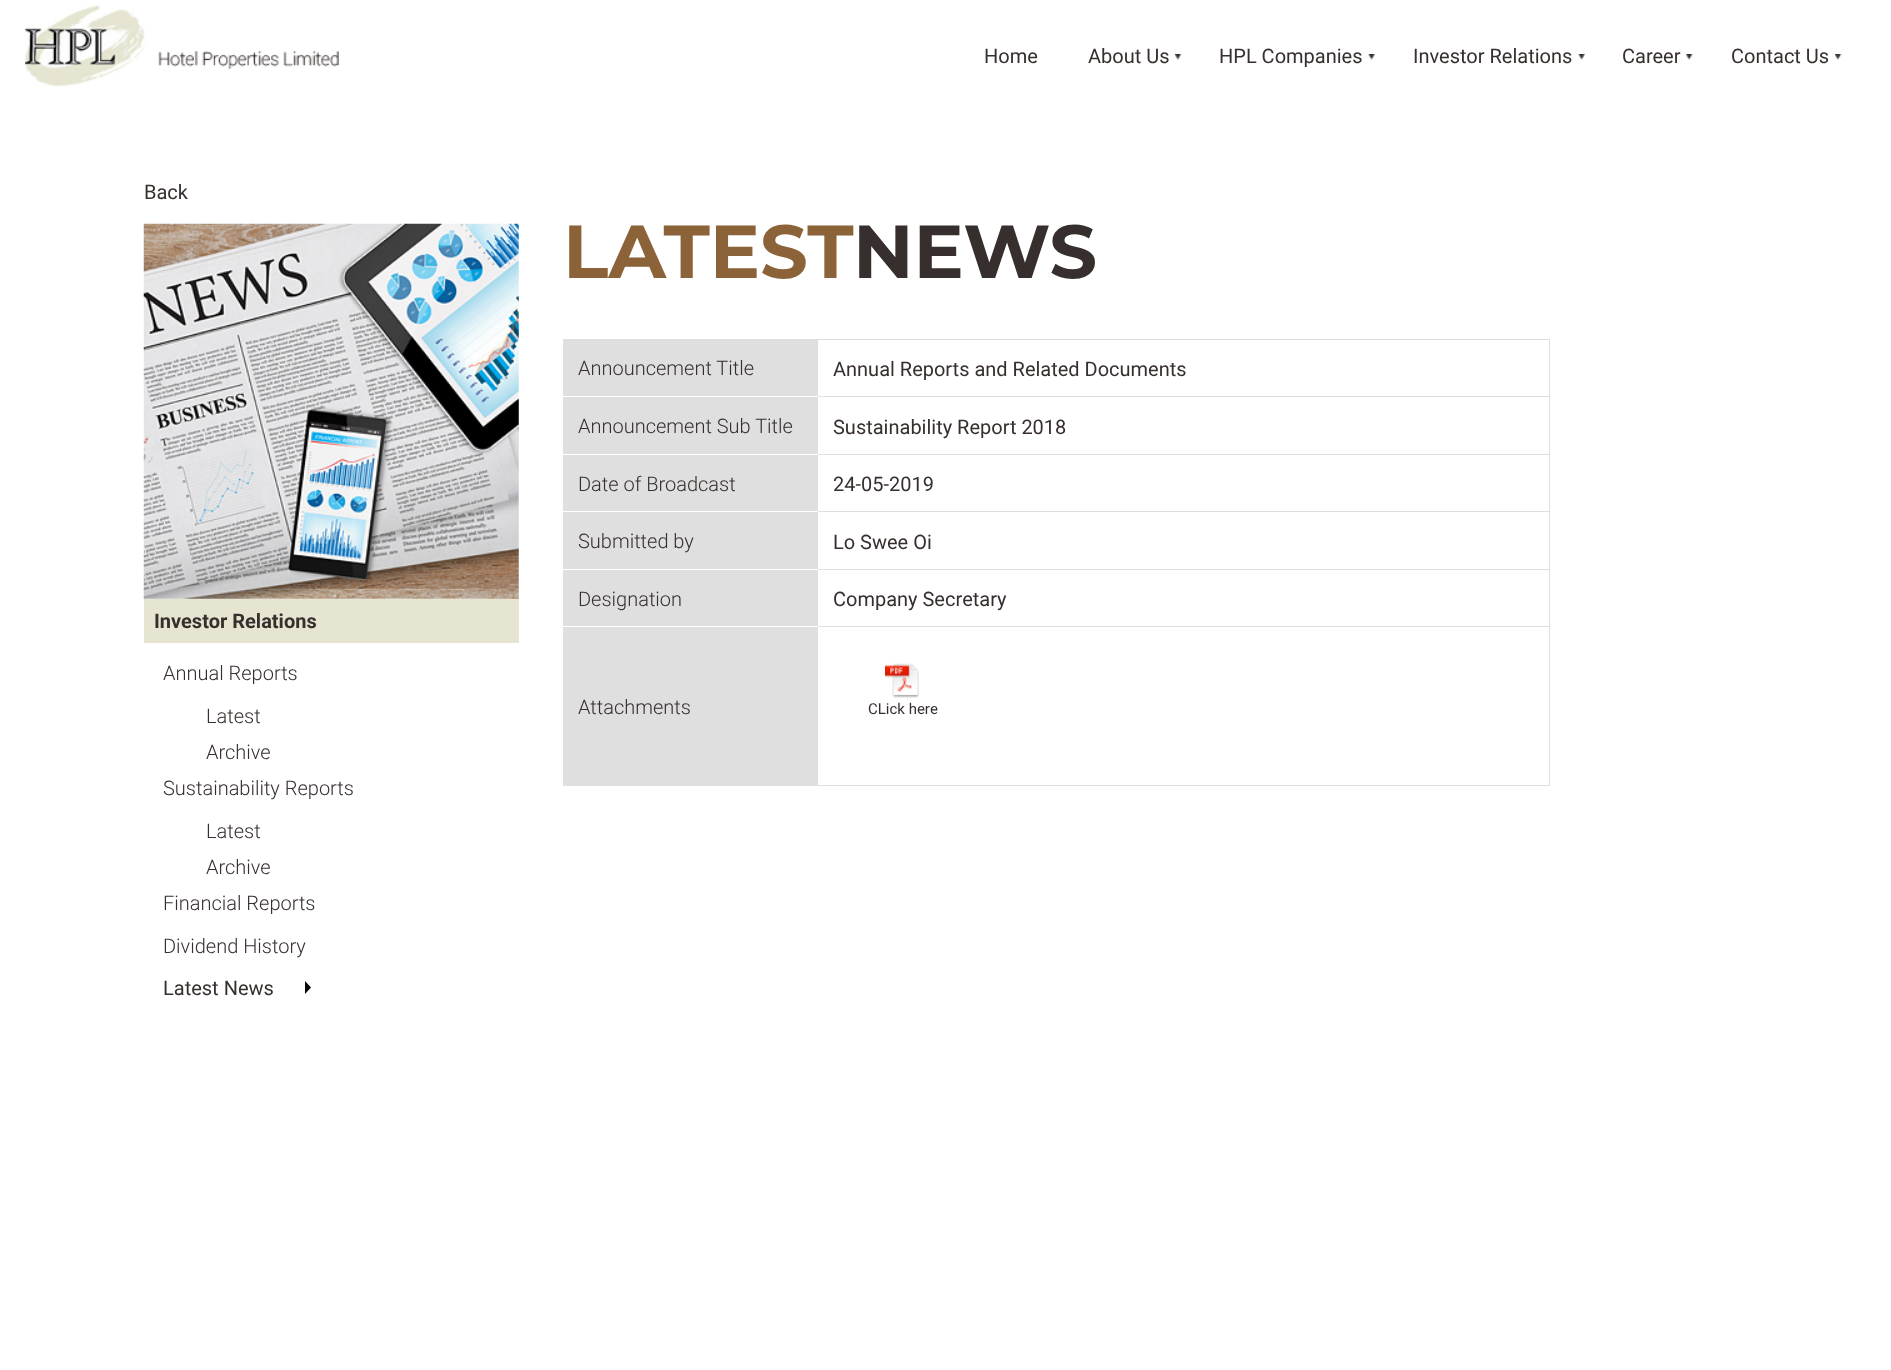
(async () => {
    const canvas = document.querySelector("canvas");
    canvas.width = 1891;
    canvas.height = 1370;
    const context = canvas.getContext("2d");
    context.miterLimit = 4;
    context.fontKerning = "normal";
    function write(s, x, y, font, color) {
        context.font = font;
        context.fillStyle = color;
        context.fillText(s, x, y);
    }
    function block(x, y, w, h, color) {
        context.fillStyle = color;
        context.fillRect(x, y, w, h);
    }
    async function photo(src, x, y, w, h) {
        const img = new Image();
        img.src = src;
        await img.decode();
        context.drawImage(img, x, y, w, h);
    }

    block(0, 0, 1891, 1370, "rgb(255, 255, 255)");
    await photo("media/1.png", 25, 5, 314, 82);
    write("Home", 984, 63, "20px 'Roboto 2'", "rgb(54, 47, 45)");
    write("About Us", 1088, 63, "20px 'Roboto 2'", "rgb(54, 47, 45)");
    await photo("media/2.png", 1175, 54, 7, 7);
    write("HPL Companies", 1219, 63, "20px 'Roboto 2'", "rgb(54, 47, 45)");
    await photo("media/3.png", 1368, 54, 7, 7);
    write("Investor Relations", 1413, 63, "20px 'Roboto 2'", "rgb(54, 47, 45)");
    await photo("media/3.png", 1578, 54, 7, 7);
    write("Career", 1622, 63, "20px 'Roboto 2'", "rgb(54, 47, 45)");
    await photo("media/4.png", 1686, 54, 7, 7);
    write("Contact Us", 1731, 63, "20px 'Roboto 2'", "rgb(54, 47, 45)");
    await photo("media/2.png", 1835, 54, 7, 7);
    write("Back", 144, 199, "20px 'Roboto 2'", "rgb(54, 47, 45)");
    write("LATEST", 563, 278, "bold 75px Montserrat", "rgb(140, 98, 57)");
    write("NEWS", 853, 278, "bold 75px Montserrat", "rgb(54, 47, 45)");
    block(563, 339, 255, 115, "rgb(223, 223, 223)");
    block(563, 396, 255, 1, "rgb(255, 255, 255)");
    write("Announcement Title", 578, 375, "300 20px Roboto", "rgb(54, 47, 45)");
    block(818, 339, 732, 1, "rgb(223, 223, 223)");
    block(1549, 339, 1, 447, "rgb(223, 223, 223)");
    block(818, 396, 732, 1, "rgb(223, 223, 223)");
    write("Annual Reports and Related Documents", 833, 376, "20px Roboto", "rgb(54, 47, 45)");
    write("Announcement Sub Title", 578, 433, "300 20px Roboto", "rgb(54, 47, 45)");
    block(818, 454, 732, 1, "rgb(223, 223, 223)");
    write("Sustainability Report 2018", 833, 434, "20px Roboto", "rgb(54, 47, 45)");
    block(563, 455, 255, 114, "rgb(223, 223, 223)");
    block(563, 511, 255, 1, "rgb(255, 255, 255)");
    write("Date of Broadcast", 578, 491, "300 20px Roboto", "rgb(54, 47, 45)");
    block(818, 511, 732, 1, "rgb(223, 223, 223)");
    write("24-05-2019", 833, 491, "20px Roboto", "rgb(54, 47, 45)");
    write("Submitted by", 578, 548, "300 20px Roboto", "rgb(54, 47, 45)");
    block(818, 569, 732, 1, "rgb(223, 223, 223)");
    write("Lo Swee Oi", 833, 549, "20px Roboto", "rgb(54, 47, 45)");
    block(563, 570, 255, 216, "rgb(223, 223, 223)");
    block(563, 626, 255, 1, "rgb(255, 255, 255)");
    write("Designation", 578, 606, "300 20px Roboto", "rgb(54, 47, 45)");
    block(818, 626, 732, 1, "rgb(223, 223, 223)");
    write("Company Secretary", 833, 606, "20px Roboto", "rgb(54, 47, 45)");
    write("Attachments", 578, 714, "300 20px Roboto", "rgb(54, 47, 45)");
    block(818, 785, 732, 1, "rgb(223, 223, 223)");
    await photo("media/5.png", 885, 663, 34, 35);
    write("CLick here", 868, 714, "15px Roboto", "rgb(54, 47, 45)");
    await photo("media/6.png", 143, 223, 376, 376);
    block(144, 599, 375, 44, "rgb(230, 229, 209)");
    write("Investor Relations", 154, 628, "bold 20px Roboto", "rgb(54, 47, 45)");
    write("Annual Reports", 163, 680, "300 20px Roboto", "rgb(54, 47, 45)");
    write("Latest", 206, 723, "300 20px Roboto", "rgb(54, 47, 45)");
    write("Archive", 206, 759, "300 20px Roboto", "rgb(54, 47, 45)");
    write("Sustainability Reports", 163, 795, "300 20px Roboto", "rgb(54, 47, 45)");
    write("Latest", 206, 838, "300 20px Roboto", "rgb(54, 47, 45)");
    write("Archive", 206, 874, "300 20px Roboto", "rgb(54, 47, 45)");
    write("Financial Reports", 163, 910, "300 20px Roboto", "rgb(54, 47, 45)");
    write("Dividend History", 163, 953, "300 20px Roboto", "rgb(54, 47, 45)");
    write("Latest News", 163, 995, "20px 'Roboto 2'", "rgb(54, 47, 45)");
    context.fillStyle = "rgb(11, 9, 8)";
    context.beginPath();
    context.moveTo(305, 994);
    context.lineTo(305, 981);
    context.lineTo(311, 987.5);
    context.closePath();
    context.fill();
})();
